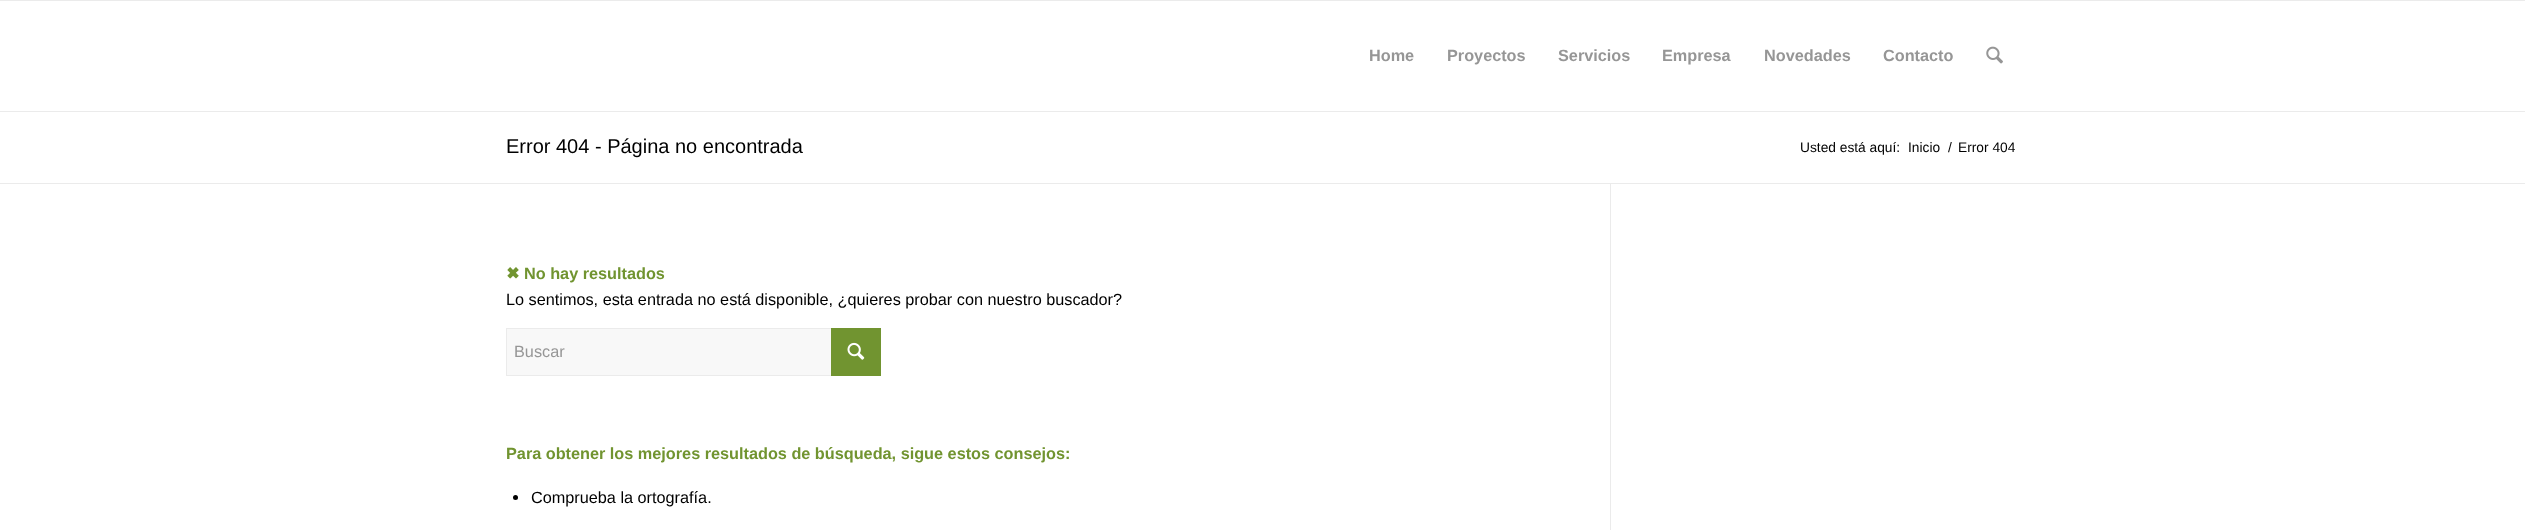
(async () => {
    const canvas = document.querySelector("canvas");
    canvas.width = 2525;
    canvas.height = 530;
    const context = canvas.getContext("2d");
    context.miterLimit = 4;
    context.fontKerning = "normal";
    function write(s, x, y, font, color) {
        context.font = font;
        context.fillStyle = color;
        context.fillText(s, x, y);
    }
    function block(x, y, w, h, color) {
        context.fillStyle = color;
        context.fillRect(x, y, w, h);
    }
    async function photo(src, x, y, w, h) {
        const img = new Image();
        img.src = src;
        await img.decode();
        context.drawImage(img, x, y, w, h);
    }

    block(0, 0, 2525, 530, "rgb(255, 255, 255)");
    block(0, 0, 2525, 1, "rgb(235, 235, 235)");
    block(0, 111, 2525, 1, "rgb(235, 235, 235)");
    write("Home", 1369, 61, "bold 16.25px Liberation Sans", "rgb(150, 150, 150)");
    write("Proyectos", 1447, 61, "bold 16.25px Liberation Sans", "rgb(150, 150, 150)");
    write("Servicios", 1558, 61, "bold 16.25px Liberation Sans", "rgb(150, 150, 150)");
    write("Empresa", 1662, 61, "bold 16.25px Liberation Sans", "rgb(150, 150, 150)");
    write("Novedades", 1764, 61, "bold 16.25px Liberation Sans", "rgb(150, 150, 150)");
    write("Contacto", 1883, 61, "bold 16.25px Liberation Sans", "rgb(150, 150, 150)");
    await photo("media/1.png", 1986, 46, 17, 18);
    write("Error 404 - Página no encontrada", 506, 153, "20px Liberation Sans", "rgb(0, 0, 0)");
    write("Usted está aquí:", 1800, 152, "13.75px Liberation Sans", "rgb(0, 0, 0)");
    write("Inicio", 1908, 152, "13.75px Liberation Sans", "rgb(0, 0, 0)");
    write("/", 1948, 152, "13.75px Liberation Sans", "rgb(0, 0, 0)");
    write("Error 404", 1958, 152, "13.75px Liberation Sans", "rgb(0, 0, 0)");
    block(0, 183, 2525, 1, "rgb(235, 235, 235)");
    block(1610, 184, 1, 346, "rgb(235, 235, 235)");
    write("✖", 506, 279, "bold 16.25px DejaVu Sans", "rgb(113, 148, 48)");
    write("No hay resultados", 524, 279, "bold 16.25px Liberation Sans", "rgb(113, 148, 48)");
    write("Lo sentimos, esta entrada no está disponible, ¿quieres probar con nuestro buscador?", 506, 305, "16.25px Liberation Sans", "rgb(0, 0, 0)");
    block(507, 329, 324, 46, "rgb(248, 248, 248)");
    context.strokeStyle = "rgb(235, 235, 235)";
    context.strokeRect(506.5, 328.5, 374, 47);
    write("Buscar", 514, 357, "16.25px Liberation Sans", "rgb(150, 150, 150)");
    block(831, 328, 50, 48, "rgb(113, 148, 48)");
    await photo("media/2.png", 847, 342, 18, 18);
    write("Para obtener los mejores resultados de búsqueda, sigue estos consejos:", 506, 459, "bold 16.25px Liberation Sans", "rgb(113, 148, 48)");
    context.fillStyle = "rgb(0, 0, 0)";
    context.beginPath();
    context.arc(515.5, 497.5, 2.5, 0, Math.PI * 2);
    context.fill();
    write("Comprueba la ortografía.", 531, 503, "16.25px Liberation Sans", "rgb(0, 0, 0)");
})();
